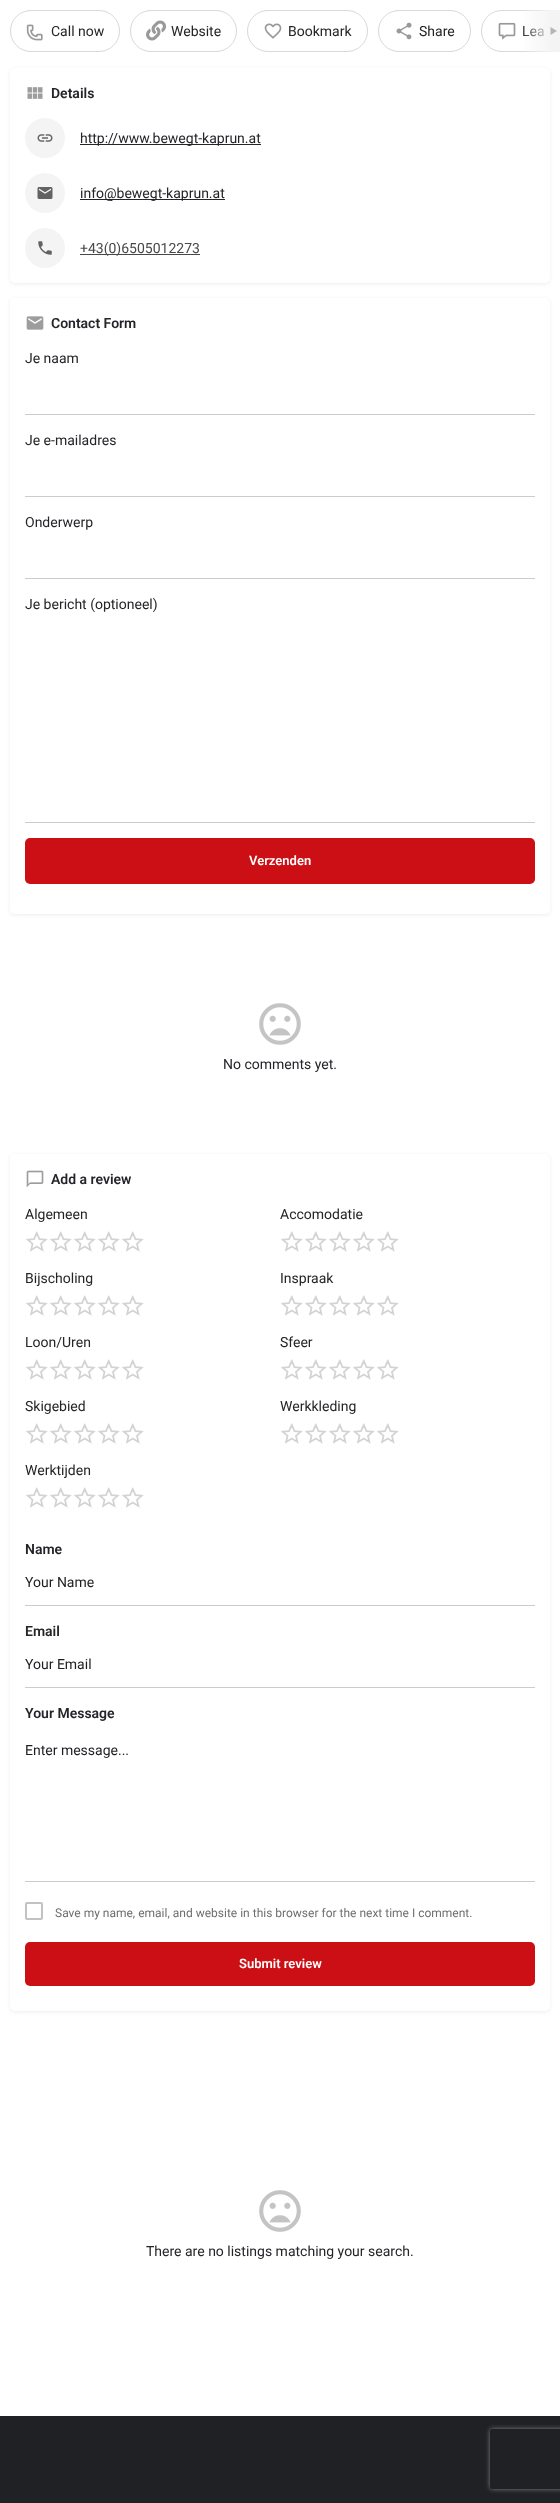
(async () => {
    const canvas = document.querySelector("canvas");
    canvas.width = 560;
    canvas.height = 2503;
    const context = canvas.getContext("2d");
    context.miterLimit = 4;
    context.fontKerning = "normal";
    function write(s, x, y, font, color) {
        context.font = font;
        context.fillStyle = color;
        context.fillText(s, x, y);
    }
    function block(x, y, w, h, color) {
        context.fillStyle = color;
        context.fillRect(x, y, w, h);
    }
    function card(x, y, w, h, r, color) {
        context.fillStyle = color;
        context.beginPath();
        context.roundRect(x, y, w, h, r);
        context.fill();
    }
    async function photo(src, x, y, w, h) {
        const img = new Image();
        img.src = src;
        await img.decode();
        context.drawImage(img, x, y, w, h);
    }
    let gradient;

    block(0, 0, 560, 2503, "rgb(32, 33, 37)");
    block(0, 0, 560, 2416, "rgb(255, 255, 255)");
    context.beginPath();
    context.roundRect(10.5, 10.5, 109, 41, 20.5);
    context.strokeStyle = "rgb(217, 217, 217)";
    context.stroke();
    await photo("media/1.png", 26, 24, 17, 17);
    write("Call now", 51, 36, "14px Roboto", "rgb(36, 36, 41)");
    context.beginPath();
    context.roundRect(130.5, 10.5, 106, 41, 20.5);
    context.stroke();
    await photo("media/2.png", 146, 20, 20, 21);
    write("Website", 171, 36, "14px Roboto", "rgb(36, 36, 41)");
    context.beginPath();
    context.roundRect(247.5, 10.5, 120, 41, 20.5);
    context.stroke();
    await photo("media/3.png", 264, 23, 18, 16);
    write("Bookmark", 288, 36, "14px Roboto", "rgb(36, 36, 41)");
    context.beginPath();
    context.roundRect(378.5, 10.5, 92, 41, 20.5);
    context.stroke();
    await photo("media/4.png", 396, 22, 16, 18);
    write("Share", 419, 36, "14px Roboto", "rgb(36, 36, 41)");
    context.beginPath();
    context.roundRect(481.5, 10.5, 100, 41, 20.5);
    context.stroke();
    write("Lea", 522, 36, "14px Roboto", "rgb(36, 36, 41)");
    gradient = context.createLinearGradient(521, 31, 560, 31);
    gradient.addColorStop(0, "rgba(244, 244, 244, 0)");
    gradient.addColorStop(0.8, "rgb(244, 244, 244)");
    context.fillStyle = gradient;
    context.fillRect(523, 10, 37, 42);
    context.fillStyle = "rgba(36, 36, 41, 0.3)";
    context.beginPath();
    context.moveTo(550.5, 27);
    context.lineTo(557, 31);
    context.lineTo(550.5, 35);
    context.closePath();
    context.fill();
    await photo("media/5.png", 498, 22, 18, 18);
    context.fillStyle = "rgba(0, 0, 0, 0.07)";
    context.filter = "blur(2px)";
    context.beginPath();
    context.roundRect(10, 69, 540, 215, 5);
    context.fill();
    context.filter = "none";
    card(10, 68, 540, 215, 5, "rgb(255, 255, 255)");
    await photo("media/6.png", 27, 87, 16, 12);
    write("Details", 51, 98, "600 14px Roboto", "rgb(36, 36, 41)");
    context.fillStyle = "rgb(244, 244, 244)";
    context.beginPath();
    context.arc(45, 138, 20, 0, Math.PI * 2);
    context.fill();
    await photo("media/7.png", 37, 134, 16, 8);
    block(80, 144, 181, 1, "rgb(36, 36, 41)");
    write("http://www.bewegt-kaprun.at", 80, 143, "14px Roboto", "rgb(36, 36, 41)");
    context.fillStyle = "rgb(244, 244, 244)";
    context.beginPath();
    context.arc(45, 193, 20, 0, Math.PI * 2);
    context.fill();
    await photo("media/8.png", 37, 187, 16, 12);
    block(80, 199, 145, 1, "rgb(36, 36, 41)");
    write("info@bewegt-kaprun.at", 80, 198, "14px Roboto", "rgb(36, 36, 41)");
    context.fillStyle = "rgb(244, 244, 244)";
    context.beginPath();
    context.arc(45, 248, 20, 0, Math.PI * 2);
    context.fill();
    await photo("media/9.png", 38, 241, 14, 14);
    block(80, 254, 120, 1, "rgb(72, 72, 72)");
    write("+43(0)6505012273", 80, 253, "14px Roboto", "rgb(72, 72, 72)");
    context.fillStyle = "rgba(0, 0, 0, 0.07)";
    context.filter = "blur(2px)";
    context.beginPath();
    context.roundRect(10, 299, 540, 616, 5);
    context.fill();
    context.filter = "none";
    card(10, 298, 540, 616, 5, "rgb(255, 255, 255)");
    await photo("media/10.png", 26, 316, 18, 14);
    write("Contact Form", 51, 328, "600 14px Roboto", "rgb(36, 36, 41)");
    write("Je naam", 25, 363, "14px Roboto", "rgb(36, 36, 41)");
    block(25, 414, 510, 1, "rgb(204, 204, 204)");
    write("Je e-mailadres", 25, 445, "14px Roboto", "rgb(36, 36, 41)");
    block(25, 496, 510, 1, "rgb(204, 204, 204)");
    write("Onderwerp", 25, 527, "14px Roboto", "rgb(36, 36, 41)");
    block(25, 578, 510, 1, "rgb(204, 204, 204)");
    write("Je bericht (optioneel)", 25, 609, "14px Roboto", "rgb(36, 36, 41)");
    block(25, 822, 510, 1, "rgb(204, 204, 204)");
    card(25, 838, 510, 46, 5, "rgb(204, 15, 20)");
    write("Verzenden", 249, 865, "600 13px Roboto", "rgb(255, 255, 255)");
    await photo("media/11.png", 259, 1003, 42, 42);
    write("No comments yet.", 223, 1069, "14px Roboto", "rgb(36, 36, 41)");
    context.fillStyle = "rgba(0, 0, 0, 0.07)";
    context.filter = "blur(2px)";
    context.beginPath();
    context.roundRect(10, 1155, 540, 857, 5);
    context.fill();
    context.filter = "none";
    card(10, 1154, 540, 857, 5, "rgb(255, 255, 255)");
    await photo("media/12.png", 26, 1170, 18, 18);
    write("Add a review", 51, 1184, "600 14px Roboto", "rgb(36, 36, 41)");
    write("Algemeen", 25, 1219, "14px Roboto", "rgb(36, 36, 41)");
    await photo("media/13.png", 26, 1231, 11, 21);
    await photo("media/14.png", 37, 1231, 11, 21);
    await photo("media/13.png", 50, 1231, 11, 21);
    await photo("media/14.png", 61, 1231, 11, 21);
    await photo("media/13.png", 74, 1231, 11, 21);
    await photo("media/14.png", 85, 1231, 11, 21);
    await photo("media/13.png", 98, 1231, 11, 21);
    await photo("media/14.png", 109, 1231, 11, 21);
    await photo("media/13.png", 122, 1231, 11, 21);
    await photo("media/14.png", 133, 1231, 11, 21);
    write("Accomodatie", 280, 1219, "14px Roboto", "rgb(36, 36, 41)");
    await photo("media/13.png", 281, 1231, 11, 21);
    await photo("media/14.png", 292, 1231, 11, 21);
    await photo("media/13.png", 305, 1231, 11, 21);
    await photo("media/14.png", 316, 1231, 11, 21);
    await photo("media/13.png", 329, 1231, 11, 21);
    await photo("media/14.png", 340, 1231, 11, 21);
    await photo("media/13.png", 353, 1231, 11, 21);
    await photo("media/14.png", 364, 1231, 11, 21);
    await photo("media/13.png", 377, 1231, 11, 21);
    await photo("media/14.png", 388, 1231, 11, 21);
    write("Bijscholing", 25, 1283, "14px Roboto", "rgb(36, 36, 41)");
    await photo("media/13.png", 26, 1295, 11, 21);
    await photo("media/14.png", 37, 1295, 11, 21);
    await photo("media/13.png", 50, 1295, 11, 21);
    await photo("media/14.png", 61, 1295, 11, 21);
    await photo("media/13.png", 74, 1295, 11, 21);
    await photo("media/14.png", 85, 1295, 11, 21);
    await photo("media/13.png", 98, 1295, 11, 21);
    await photo("media/14.png", 109, 1295, 11, 21);
    await photo("media/13.png", 122, 1295, 11, 21);
    await photo("media/14.png", 133, 1295, 11, 21);
    write("Inspraak", 280, 1283, "14px Roboto", "rgb(36, 36, 41)");
    await photo("media/13.png", 281, 1295, 11, 21);
    await photo("media/14.png", 292, 1295, 11, 21);
    await photo("media/13.png", 305, 1295, 11, 21);
    await photo("media/14.png", 316, 1295, 11, 21);
    await photo("media/13.png", 329, 1295, 11, 21);
    await photo("media/14.png", 340, 1295, 11, 21);
    await photo("media/13.png", 353, 1295, 11, 21);
    await photo("media/14.png", 364, 1295, 11, 21);
    await photo("media/13.png", 377, 1295, 11, 21);
    await photo("media/14.png", 388, 1295, 11, 21);
    write("Loon/Uren", 25, 1347, "14px Roboto", "rgb(36, 36, 41)");
    await photo("media/13.png", 26, 1359, 11, 21);
    await photo("media/14.png", 37, 1359, 11, 21);
    await photo("media/13.png", 50, 1359, 11, 21);
    await photo("media/14.png", 61, 1359, 11, 21);
    await photo("media/13.png", 74, 1359, 11, 21);
    await photo("media/14.png", 85, 1359, 11, 21);
    await photo("media/13.png", 98, 1359, 11, 21);
    await photo("media/14.png", 109, 1359, 11, 21);
    await photo("media/13.png", 122, 1359, 11, 21);
    await photo("media/14.png", 133, 1359, 11, 21);
    write("Sfeer", 280, 1347, "14px Roboto", "rgb(36, 36, 41)");
    await photo("media/13.png", 281, 1359, 11, 21);
    await photo("media/14.png", 292, 1359, 11, 21);
    await photo("media/13.png", 305, 1359, 11, 21);
    await photo("media/14.png", 316, 1359, 11, 21);
    await photo("media/13.png", 329, 1359, 11, 21);
    await photo("media/14.png", 340, 1359, 11, 21);
    await photo("media/13.png", 353, 1359, 11, 21);
    await photo("media/14.png", 364, 1359, 11, 21);
    await photo("media/13.png", 377, 1359, 11, 21);
    await photo("media/14.png", 388, 1359, 11, 21);
    write("Skigebied", 25, 1411, "14px Roboto", "rgb(36, 36, 41)");
    await photo("media/13.png", 26, 1423, 11, 21);
    await photo("media/14.png", 37, 1423, 11, 21);
    await photo("media/13.png", 50, 1423, 11, 21);
    await photo("media/14.png", 61, 1423, 11, 21);
    await photo("media/13.png", 74, 1423, 11, 21);
    await photo("media/14.png", 85, 1423, 11, 21);
    await photo("media/13.png", 98, 1423, 11, 21);
    await photo("media/14.png", 109, 1423, 11, 21);
    await photo("media/13.png", 122, 1423, 11, 21);
    await photo("media/14.png", 133, 1423, 11, 21);
    write("Werkkleding", 280, 1411, "14px Roboto", "rgb(36, 36, 41)");
    await photo("media/13.png", 281, 1423, 11, 21);
    await photo("media/14.png", 292, 1423, 11, 21);
    await photo("media/13.png", 305, 1423, 11, 21);
    await photo("media/14.png", 316, 1423, 11, 21);
    await photo("media/13.png", 329, 1423, 11, 21);
    await photo("media/14.png", 340, 1423, 11, 21);
    await photo("media/13.png", 353, 1423, 11, 21);
    await photo("media/14.png", 364, 1423, 11, 21);
    await photo("media/13.png", 377, 1423, 11, 21);
    await photo("media/14.png", 388, 1423, 11, 21);
    write("Werktijden", 25, 1475, "14px Roboto", "rgb(36, 36, 41)");
    await photo("media/13.png", 26, 1487, 11, 21);
    await photo("media/14.png", 37, 1487, 11, 21);
    await photo("media/13.png", 50, 1487, 11, 21);
    await photo("media/14.png", 61, 1487, 11, 21);
    await photo("media/13.png", 74, 1487, 11, 21);
    await photo("media/14.png", 85, 1487, 11, 21);
    await photo("media/13.png", 98, 1487, 11, 21);
    await photo("media/14.png", 109, 1487, 11, 21);
    await photo("media/13.png", 122, 1487, 11, 21);
    await photo("media/14.png", 133, 1487, 11, 21);
    write("Name", 25, 1554, "600 14px Roboto", "rgb(36, 36, 41)");
    block(25, 1605, 510, 1, "rgb(204, 204, 204)");
    write("Your Name", 25, 1587, "14px Roboto", "rgb(29, 29, 35)");
    write("Email", 25, 1636, "600 14px Roboto", "rgb(36, 36, 41)");
    block(25, 1687, 510, 1, "rgb(204, 204, 204)");
    write("Your Email", 25, 1669, "14px Roboto", "rgb(29, 29, 35)");
    write("Your Message", 25, 1718, "600 14px Roboto", "rgb(36, 36, 41)");
    block(25, 1881, 510, 1, "rgb(204, 204, 204)");
    write("Enter message...", 25, 1755, "14px Roboto", "rgb(29, 29, 35)");
    context.beginPath();
    context.roundRect(26, 1903, 16, 16, 1);
    context.strokeStyle = "rgb(194, 194, 194)";
    context.lineWidth = 2;
    context.stroke();
    write("Save my name, email, and website in this browser for the next time I comment.", 55, 1917, "12px Roboto", "rgb(110, 110, 110)");
    card(25, 1942, 510, 44, 5, "rgb(204, 15, 20)");
    write("Submit review", 239, 1968, "600 13px Roboto", "rgb(255, 255, 255)");
    await photo("media/11.png", 259, 2190, 42, 42);
    write("There are no listings matching your search.", 146, 2256, "14px Roboto", "rgb(36, 36, 41)");
    context.save();
    context.beginPath();
    context.moveTo(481, 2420);
    context.lineTo(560, 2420);
    context.lineTo(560, 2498);
    context.lineTo(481, 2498);
    context.closePath();
    context.moveTo(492, 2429);
    context.lineTo(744, 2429);
    context.bezierCurveTo(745, 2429, 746, 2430, 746, 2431);
    context.lineTo(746, 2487);
    context.bezierCurveTo(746, 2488, 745, 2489, 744, 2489);
    context.lineTo(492, 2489);
    context.bezierCurveTo(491, 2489, 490, 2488, 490, 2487);
    context.lineTo(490, 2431);
    context.bezierCurveTo(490, 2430, 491, 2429, 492, 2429);
    context.closePath();
    context.clip("evenodd");
    context.fillStyle = "rgb(128, 128, 128)";
    context.filter = "blur(2.5px)";
    context.beginPath();
    context.roundRect(490, 2429, 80, 60, 2);
    context.fill();
    context.filter = "none";
    context.restore();
})();
